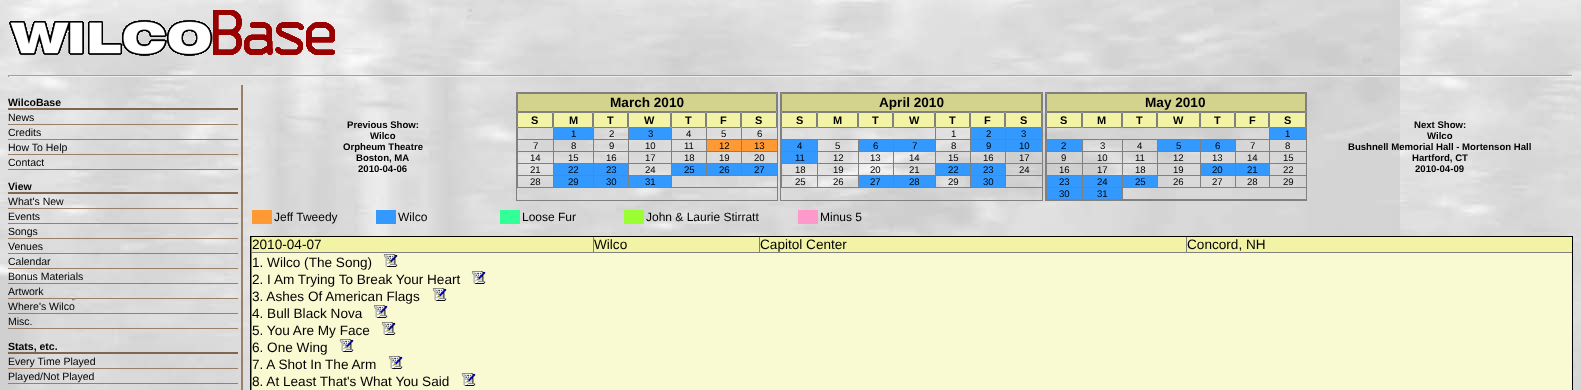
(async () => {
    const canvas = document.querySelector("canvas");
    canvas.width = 1581;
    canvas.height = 390;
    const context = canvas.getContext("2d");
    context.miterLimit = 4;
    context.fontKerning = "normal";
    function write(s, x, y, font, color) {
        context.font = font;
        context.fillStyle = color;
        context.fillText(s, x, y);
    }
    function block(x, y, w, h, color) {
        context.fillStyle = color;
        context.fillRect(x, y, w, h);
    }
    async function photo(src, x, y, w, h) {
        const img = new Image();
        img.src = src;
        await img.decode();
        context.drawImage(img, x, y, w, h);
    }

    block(0, 0, 1581, 390, "rgb(255, 255, 255)");
    await photo("media/1.png", 0, 0, 1581, 390);
    await photo("media/2.png", 9, 10, 326, 46);
    block(8, 75, 1565, 1, "rgb(159, 159, 159)");
    block(1572, 75, 1, 2, "rgb(238, 238, 238)");
    block(8, 76, 1565, 1, "rgb(238, 238, 238)");
    block(8, 75, 1, 2, "rgb(159, 159, 159)");
    block(241, 85, 2, 305, "rgb(153, 128, 102)");
    block(8, 108, 230, 2, "rgb(128, 102, 77)");
    write("WilcoBase", 8, 106, "bold 10.5px Liberation Sans", "rgb(0, 0, 0)");
    block(8, 124, 230, 1, "rgb(153, 128, 102)");
    write("News", 8, 121, "10.5px Liberation Sans", "rgb(0, 0, 0)");
    block(8, 139, 230, 1, "rgb(153, 128, 102)");
    write("Credits", 8, 136, "10.5px Liberation Sans", "rgb(0, 0, 0)");
    block(8, 154, 230, 1, "rgb(153, 128, 102)");
    write("How To Help", 8, 151, "10.5px Liberation Sans", "rgb(0, 0, 0)");
    block(8, 169, 230, 1, "rgb(153, 128, 102)");
    write("Contact", 8, 166, "10.5px Liberation Sans", "rgb(0, 0, 0)");
    block(8, 192, 230, 2, "rgb(128, 102, 77)");
    write("View", 8, 190, "bold 10.5px Liberation Sans", "rgb(0, 0, 0)");
    block(8, 208, 230, 1, "rgb(153, 128, 102)");
    write("What's New", 8, 205, "10.5px Liberation Sans", "rgb(0, 0, 0)");
    block(8, 223, 230, 1, "rgb(153, 128, 102)");
    write("Events", 8, 220, "10.5px Liberation Sans", "rgb(0, 0, 0)");
    block(8, 238, 230, 1, "rgb(153, 128, 102)");
    write("Songs", 8, 235, "10.5px Liberation Sans", "rgb(0, 0, 0)");
    block(8, 253, 230, 1, "rgb(153, 128, 102)");
    write("Venues", 8, 250, "10.5px Liberation Sans", "rgb(0, 0, 0)");
    block(8, 268, 230, 1, "rgb(153, 128, 102)");
    write("Calendar", 8, 265, "10.5px Liberation Sans", "rgb(0, 0, 0)");
    block(8, 283, 230, 1, "rgb(153, 128, 102)");
    write("Bonus Materials", 8, 280, "10.5px Liberation Sans", "rgb(0, 0, 0)");
    block(8, 298, 230, 1, "rgb(153, 128, 102)");
    write("Artwork", 8, 295, "10.5px Liberation Sans", "rgb(0, 0, 0)");
    block(8, 313, 230, 1, "rgb(153, 128, 102)");
    write("Where's Wilco", 8, 310, "10.5px Liberation Sans", "rgb(0, 0, 0)");
    block(8, 328, 230, 1, "rgb(153, 128, 102)");
    write("Misc.", 8, 325, "10.5px Liberation Sans", "rgb(0, 0, 0)");
    block(8, 352, 230, 2, "rgb(128, 102, 77)");
    write("Stats, etc.", 8, 350, "bold 10.5px Liberation Sans", "rgb(0, 0, 0)");
    block(8, 368, 230, 1, "rgb(153, 128, 102)");
    write("Every Time Played", 8, 365, "10.5px Liberation Sans", "rgb(0, 0, 0)");
    block(8, 383, 230, 1, "rgb(153, 128, 102)");
    write("Played/Not Played", 8, 380, "10.5px Liberation Sans", "rgb(0, 0, 0)");
    write("Previous Show:", 347, 128, "bold 9.6px Liberation Sans", "rgb(0, 0, 0)");
    write("Wilco", 370, 139, "bold 9.6px Liberation Sans", "rgb(0, 0, 0)");
    write("Orpheum Theatre", 343, 150, "bold 9.6px Liberation Sans", "rgb(0, 0, 0)");
    write("Boston, MA", 356, 161, "bold 9.6px Liberation Sans", "rgb(0, 0, 0)");
    write("2010-04-06", 358, 172, "bold 9.6px Liberation Sans", "rgb(0, 0, 0)");
    context.strokeStyle = "rgb(128, 128, 128)";
    context.strokeRect(516.5, 92.5, 261, 108);
    context.fillStyle = "rgb(211, 211, 141)";
    context.beginPath();
    context.rect(517.5, 93.5, 259, 18);
    context.fill();
    context.stroke();
    write("March 2010", 610, 107, "bold 13.6px Liberation Sans", "rgb(0, 0, 0)");
    context.fillStyle = "rgb(243, 243, 165)";
    context.beginPath();
    context.rect(517.5, 112.5, 35, 15);
    context.fill();
    context.stroke();
    write("S", 531, 124, "bold 11px Liberation Sans", "rgb(0, 0, 0)");
    context.fillStyle = "rgb(243, 243, 165)";
    context.beginPath();
    context.rect(553.5, 112.5, 39, 15);
    context.fill();
    context.stroke();
    write("M", 569, 124, "bold 11px Liberation Sans", "rgb(0, 0, 0)");
    context.fillStyle = "rgb(243, 243, 165)";
    context.beginPath();
    context.rect(593.5, 112.5, 34, 15);
    context.fill();
    context.stroke();
    write("T", 607, 124, "bold 11px Liberation Sans", "rgb(0, 0, 0)");
    context.fillStyle = "rgb(243, 243, 165)";
    context.beginPath();
    context.rect(628.5, 112.5, 42, 15);
    context.fill();
    context.stroke();
    write("W", 644, 124, "bold 11px Liberation Sans", "rgb(0, 0, 0)");
    context.fillStyle = "rgb(243, 243, 165)";
    context.beginPath();
    context.rect(671.5, 112.5, 34, 15);
    context.fill();
    context.stroke();
    write("T", 685, 124, "bold 11px Liberation Sans", "rgb(0, 0, 0)");
    context.fillStyle = "rgb(243, 243, 165)";
    context.beginPath();
    context.rect(706.5, 112.5, 34, 15);
    context.fill();
    context.stroke();
    write("F", 720, 124, "bold 11px Liberation Sans", "rgb(0, 0, 0)");
    context.fillStyle = "rgb(243, 243, 165)";
    context.beginPath();
    context.rect(741.5, 112.5, 35, 15);
    context.fill();
    context.stroke();
    write("S", 755, 124, "bold 11px Liberation Sans", "rgb(0, 0, 0)");
    block(517, 139, 260, 1, "rgb(128, 128, 128)");
    block(517, 128, 1, 12, "rgb(128, 128, 128)");
    block(554, 128, 39, 11, "rgb(51, 153, 255)");
    block(553, 128, 1, 12, "rgb(128, 128, 128)");
    write("1", 571, 137, "9.6px Liberation Sans", "rgb(0, 0, 0)");
    block(593, 128, 1, 12, "rgb(128, 128, 128)");
    write("2", 609, 137, "9.6px Liberation Sans", "rgb(0, 0, 0)");
    block(629, 128, 42, 11, "rgb(51, 153, 255)");
    block(628, 128, 1, 12, "rgb(128, 128, 128)");
    write("3", 648, 137, "9.6px Liberation Sans", "rgb(0, 0, 0)");
    block(671, 128, 1, 12, "rgb(128, 128, 128)");
    write("4", 686, 137, "9.6px Liberation Sans", "rgb(0, 0, 0)");
    block(706, 128, 1, 12, "rgb(128, 128, 128)");
    write("5", 721, 137, "9.6px Liberation Sans", "rgb(0, 0, 0)");
    block(741, 128, 1, 12, "rgb(128, 128, 128)");
    write("6", 757, 137, "9.6px Liberation Sans", "rgb(0, 0, 0)");
    block(517, 151, 260, 1, "rgb(128, 128, 128)");
    block(517, 140, 1, 12, "rgb(128, 128, 128)");
    write("7", 533, 149, "9.6px Liberation Sans", "rgb(0, 0, 0)");
    block(553, 140, 1, 12, "rgb(128, 128, 128)");
    write("8", 571, 149, "9.6px Liberation Sans", "rgb(0, 0, 0)");
    block(593, 140, 1, 12, "rgb(128, 128, 128)");
    write("9", 609, 149, "9.6px Liberation Sans", "rgb(0, 0, 0)");
    block(628, 140, 1, 12, "rgb(128, 128, 128)");
    write("10", 645, 149, "9.6px Liberation Sans", "rgb(0, 0, 0)");
    block(671, 140, 1, 12, "rgb(128, 128, 128)");
    write("11", 684, 149, "9.6px Liberation Sans", "rgb(0, 0, 0)");
    block(707, 140, 34, 11, "rgb(255, 153, 51)");
    block(706, 140, 1, 12, "rgb(128, 128, 128)");
    write("12", 719, 149, "9.6px Liberation Sans", "rgb(0, 0, 0)");
    block(742, 140, 35, 11, "rgb(255, 153, 51)");
    block(741, 140, 1, 12, "rgb(128, 128, 128)");
    write("13", 754, 149, "9.6px Liberation Sans", "rgb(0, 0, 0)");
    block(517, 163, 260, 1, "rgb(128, 128, 128)");
    block(517, 152, 1, 12, "rgb(128, 128, 128)");
    write("14", 530, 161, "9.6px Liberation Sans", "rgb(0, 0, 0)");
    block(553, 152, 1, 12, "rgb(128, 128, 128)");
    write("15", 568, 161, "9.6px Liberation Sans", "rgb(0, 0, 0)");
    block(593, 152, 1, 12, "rgb(128, 128, 128)");
    write("16", 606, 161, "9.6px Liberation Sans", "rgb(0, 0, 0)");
    block(628, 152, 1, 12, "rgb(128, 128, 128)");
    write("17", 645, 161, "9.6px Liberation Sans", "rgb(0, 0, 0)");
    block(671, 152, 1, 12, "rgb(128, 128, 128)");
    write("18", 684, 161, "9.6px Liberation Sans", "rgb(0, 0, 0)");
    block(706, 152, 1, 12, "rgb(128, 128, 128)");
    write("19", 719, 161, "9.6px Liberation Sans", "rgb(0, 0, 0)");
    block(741, 152, 1, 12, "rgb(128, 128, 128)");
    write("20", 754, 161, "9.6px Liberation Sans", "rgb(0, 0, 0)");
    block(517, 175, 260, 1, "rgb(128, 128, 128)");
    block(517, 164, 1, 12, "rgb(128, 128, 128)");
    write("21", 530, 173, "9.6px Liberation Sans", "rgb(0, 0, 0)");
    block(554, 164, 39, 11, "rgb(51, 153, 255)");
    block(553, 164, 1, 12, "rgb(128, 128, 128)");
    write("22", 568, 173, "9.6px Liberation Sans", "rgb(0, 0, 0)");
    block(594, 164, 34, 11, "rgb(51, 153, 255)");
    block(593, 164, 1, 12, "rgb(128, 128, 128)");
    write("23", 606, 173, "9.6px Liberation Sans", "rgb(0, 0, 0)");
    block(628, 164, 1, 12, "rgb(128, 128, 128)");
    write("24", 645, 173, "9.6px Liberation Sans", "rgb(0, 0, 0)");
    block(672, 164, 34, 11, "rgb(51, 153, 255)");
    block(671, 164, 1, 12, "rgb(128, 128, 128)");
    write("25", 684, 173, "9.6px Liberation Sans", "rgb(0, 0, 0)");
    block(707, 164, 34, 11, "rgb(51, 153, 255)");
    block(706, 164, 1, 12, "rgb(128, 128, 128)");
    write("26", 719, 173, "9.6px Liberation Sans", "rgb(0, 0, 0)");
    block(742, 164, 35, 11, "rgb(51, 153, 255)");
    block(741, 164, 1, 12, "rgb(128, 128, 128)");
    write("27", 754, 173, "9.6px Liberation Sans", "rgb(0, 0, 0)");
    block(517, 187, 260, 1, "rgb(128, 128, 128)");
    block(517, 176, 1, 12, "rgb(128, 128, 128)");
    write("28", 530, 185, "9.6px Liberation Sans", "rgb(0, 0, 0)");
    block(554, 176, 39, 11, "rgb(51, 153, 255)");
    block(553, 176, 1, 12, "rgb(128, 128, 128)");
    write("29", 568, 185, "9.6px Liberation Sans", "rgb(0, 0, 0)");
    block(594, 176, 34, 11, "rgb(51, 153, 255)");
    block(593, 176, 1, 12, "rgb(128, 128, 128)");
    write("30", 606, 185, "9.6px Liberation Sans", "rgb(0, 0, 0)");
    block(629, 176, 42, 11, "rgb(51, 153, 255)");
    block(628, 176, 1, 12, "rgb(128, 128, 128)");
    write("31", 645, 185, "9.6px Liberation Sans", "rgb(0, 0, 0)");
    block(671, 176, 1, 12, "rgb(128, 128, 128)");
    context.strokeRect(780.5, 92.5, 262, 108);
    context.fillStyle = "rgb(211, 211, 141)";
    context.beginPath();
    context.rect(781.5, 93.5, 260, 18);
    context.fill();
    context.stroke();
    write("April 2010", 879, 107, "bold 13.6px Liberation Sans", "rgb(0, 0, 0)");
    context.fillStyle = "rgb(243, 243, 165)";
    context.beginPath();
    context.rect(781.5, 112.5, 35, 15);
    context.fill();
    context.stroke();
    write("S", 796, 124, "bold 11px Liberation Sans", "rgb(0, 0, 0)");
    context.fillStyle = "rgb(243, 243, 165)";
    context.beginPath();
    context.rect(817.5, 112.5, 40, 15);
    context.fill();
    context.stroke();
    write("M", 833, 124, "bold 11px Liberation Sans", "rgb(0, 0, 0)");
    context.fillStyle = "rgb(243, 243, 165)";
    context.beginPath();
    context.rect(858.5, 112.5, 34, 15);
    context.fill();
    context.stroke();
    write("T", 872, 124, "bold 11px Liberation Sans", "rgb(0, 0, 0)");
    context.fillStyle = "rgb(243, 243, 165)";
    context.beginPath();
    context.rect(893.5, 112.5, 41, 15);
    context.fill();
    context.stroke();
    write("W", 909, 124, "bold 11px Liberation Sans", "rgb(0, 0, 0)");
    context.fillStyle = "rgb(243, 243, 165)";
    context.beginPath();
    context.rect(935.5, 112.5, 34, 15);
    context.fill();
    context.stroke();
    write("T", 949, 124, "bold 11px Liberation Sans", "rgb(0, 0, 0)");
    context.fillStyle = "rgb(243, 243, 165)";
    context.beginPath();
    context.rect(970.5, 112.5, 34, 15);
    context.fill();
    context.stroke();
    write("F", 984, 124, "bold 11px Liberation Sans", "rgb(0, 0, 0)");
    context.fillStyle = "rgb(243, 243, 165)";
    context.beginPath();
    context.rect(1005.5, 112.5, 36, 15);
    context.fill();
    context.stroke();
    write("S", 1020, 124, "bold 11px Liberation Sans", "rgb(0, 0, 0)");
    block(781, 139, 261, 1, "rgb(128, 128, 128)");
    block(781, 128, 1, 12, "rgb(128, 128, 128)");
    block(935, 128, 1, 12, "rgb(128, 128, 128)");
    write("1", 951, 137, "9.6px Liberation Sans", "rgb(0, 0, 0)");
    block(971, 128, 34, 11, "rgb(51, 153, 255)");
    block(970, 128, 1, 12, "rgb(128, 128, 128)");
    write("2", 986, 137, "9.6px Liberation Sans", "rgb(0, 0, 0)");
    block(1006, 128, 36, 11, "rgb(51, 153, 255)");
    block(1005, 128, 1, 12, "rgb(128, 128, 128)");
    write("3", 1021, 137, "9.6px Liberation Sans", "rgb(0, 0, 0)");
    block(782, 140, 35, 11, "rgb(51, 153, 255)");
    block(781, 151, 261, 1, "rgb(128, 128, 128)");
    block(781, 140, 1, 12, "rgb(128, 128, 128)");
    write("4", 797, 149, "9.6px Liberation Sans", "rgb(0, 0, 0)");
    block(817, 140, 1, 12, "rgb(128, 128, 128)");
    write("5", 835, 149, "9.6px Liberation Sans", "rgb(0, 0, 0)");
    block(859, 140, 34, 11, "rgb(51, 153, 255)");
    block(858, 140, 1, 12, "rgb(128, 128, 128)");
    write("6", 873, 149, "9.6px Liberation Sans", "rgb(0, 0, 0)");
    block(894, 140, 41, 11, "rgb(51, 153, 255)");
    block(893, 140, 1, 12, "rgb(128, 128, 128)");
    write("7", 912, 149, "9.6px Liberation Sans", "rgb(0, 0, 0)");
    block(935, 140, 1, 12, "rgb(128, 128, 128)");
    write("8", 951, 149, "9.6px Liberation Sans", "rgb(0, 0, 0)");
    block(971, 140, 34, 11, "rgb(51, 153, 255)");
    block(970, 140, 1, 12, "rgb(128, 128, 128)");
    write("9", 986, 149, "9.6px Liberation Sans", "rgb(0, 0, 0)");
    block(1006, 140, 36, 11, "rgb(51, 153, 255)");
    block(1005, 140, 1, 12, "rgb(128, 128, 128)");
    write("10", 1019, 149, "9.6px Liberation Sans", "rgb(0, 0, 0)");
    block(782, 152, 35, 11, "rgb(51, 153, 255)");
    block(781, 163, 261, 1, "rgb(128, 128, 128)");
    block(781, 152, 1, 12, "rgb(128, 128, 128)");
    write("11", 795, 161, "9.6px Liberation Sans", "rgb(0, 0, 0)");
    block(817, 152, 1, 12, "rgb(128, 128, 128)");
    write("12", 833, 161, "9.6px Liberation Sans", "rgb(0, 0, 0)");
    block(858, 152, 1, 12, "rgb(128, 128, 128)");
    write("13", 870, 161, "9.6px Liberation Sans", "rgb(0, 0, 0)");
    block(893, 152, 1, 12, "rgb(128, 128, 128)");
    write("14", 909, 161, "9.6px Liberation Sans", "rgb(0, 0, 0)");
    block(935, 152, 1, 12, "rgb(128, 128, 128)");
    write("15", 948, 161, "9.6px Liberation Sans", "rgb(0, 0, 0)");
    block(970, 152, 1, 12, "rgb(128, 128, 128)");
    write("16", 983, 161, "9.6px Liberation Sans", "rgb(0, 0, 0)");
    block(1005, 152, 1, 12, "rgb(128, 128, 128)");
    write("17", 1019, 161, "9.6px Liberation Sans", "rgb(0, 0, 0)");
    block(781, 175, 261, 1, "rgb(128, 128, 128)");
    block(781, 164, 1, 12, "rgb(128, 128, 128)");
    write("18", 795, 173, "9.6px Liberation Sans", "rgb(0, 0, 0)");
    block(817, 164, 1, 12, "rgb(128, 128, 128)");
    write("19", 833, 173, "9.6px Liberation Sans", "rgb(0, 0, 0)");
    block(858, 164, 1, 12, "rgb(128, 128, 128)");
    write("20", 870, 173, "9.6px Liberation Sans", "rgb(0, 0, 0)");
    block(893, 164, 1, 12, "rgb(128, 128, 128)");
    write("21", 909, 173, "9.6px Liberation Sans", "rgb(0, 0, 0)");
    block(936, 164, 34, 11, "rgb(51, 153, 255)");
    block(935, 164, 1, 12, "rgb(128, 128, 128)");
    write("22", 948, 173, "9.6px Liberation Sans", "rgb(0, 0, 0)");
    block(971, 164, 34, 11, "rgb(51, 153, 255)");
    block(970, 164, 1, 12, "rgb(128, 128, 128)");
    write("23", 983, 173, "9.6px Liberation Sans", "rgb(0, 0, 0)");
    block(1005, 164, 1, 12, "rgb(128, 128, 128)");
    write("24", 1019, 173, "9.6px Liberation Sans", "rgb(0, 0, 0)");
    block(781, 187, 261, 1, "rgb(128, 128, 128)");
    block(781, 176, 1, 12, "rgb(128, 128, 128)");
    write("25", 795, 185, "9.6px Liberation Sans", "rgb(0, 0, 0)");
    block(817, 176, 1, 12, "rgb(128, 128, 128)");
    write("26", 833, 185, "9.6px Liberation Sans", "rgb(0, 0, 0)");
    block(859, 176, 34, 11, "rgb(51, 153, 255)");
    block(858, 176, 1, 12, "rgb(128, 128, 128)");
    write("27", 870, 185, "9.6px Liberation Sans", "rgb(0, 0, 0)");
    block(894, 176, 41, 11, "rgb(51, 153, 255)");
    block(893, 176, 1, 12, "rgb(128, 128, 128)");
    write("28", 909, 185, "9.6px Liberation Sans", "rgb(0, 0, 0)");
    block(935, 176, 1, 12, "rgb(128, 128, 128)");
    write("29", 948, 185, "9.6px Liberation Sans", "rgb(0, 0, 0)");
    block(971, 176, 34, 11, "rgb(51, 153, 255)");
    block(970, 176, 1, 12, "rgb(128, 128, 128)");
    write("30", 983, 185, "9.6px Liberation Sans", "rgb(0, 0, 0)");
    block(1005, 176, 1, 12, "rgb(128, 128, 128)");
    context.strokeRect(1045.5, 92.5, 261, 108);
    context.fillStyle = "rgb(211, 211, 141)";
    context.beginPath();
    context.rect(1046.5, 93.5, 259, 18);
    context.fill();
    context.stroke();
    write("May 2010", 1145, 107, "bold 13.6px Liberation Sans", "rgb(0, 0, 0)");
    context.fillStyle = "rgb(243, 243, 165)";
    context.beginPath();
    context.rect(1046.5, 112.5, 35, 15);
    context.fill();
    context.stroke();
    write("S", 1060, 124, "bold 11px Liberation Sans", "rgb(0, 0, 0)");
    context.fillStyle = "rgb(243, 243, 165)";
    context.beginPath();
    context.rect(1082.5, 112.5, 39, 15);
    context.fill();
    context.stroke();
    write("M", 1097, 124, "bold 11px Liberation Sans", "rgb(0, 0, 0)");
    context.fillStyle = "rgb(243, 243, 165)";
    context.beginPath();
    context.rect(1122.5, 112.5, 34, 15);
    context.fill();
    context.stroke();
    write("T", 1136, 124, "bold 11px Liberation Sans", "rgb(0, 0, 0)");
    context.fillStyle = "rgb(243, 243, 165)";
    context.beginPath();
    context.rect(1157.5, 112.5, 42, 15);
    context.fill();
    context.stroke();
    write("W", 1173, 124, "bold 11px Liberation Sans", "rgb(0, 0, 0)");
    context.fillStyle = "rgb(243, 243, 165)";
    context.beginPath();
    context.rect(1200.5, 112.5, 34, 15);
    context.fill();
    context.stroke();
    write("T", 1214, 124, "bold 11px Liberation Sans", "rgb(0, 0, 0)");
    context.fillStyle = "rgb(243, 243, 165)";
    context.beginPath();
    context.rect(1235.5, 112.5, 33, 15);
    context.fill();
    context.stroke();
    write("F", 1249, 124, "bold 11px Liberation Sans", "rgb(0, 0, 0)");
    context.fillStyle = "rgb(243, 243, 165)";
    context.beginPath();
    context.rect(1269.5, 112.5, 36, 15);
    context.fill();
    context.stroke();
    write("S", 1284, 124, "bold 11px Liberation Sans", "rgb(0, 0, 0)");
    block(1046, 139, 260, 1, "rgb(128, 128, 128)");
    block(1046, 128, 1, 12, "rgb(128, 128, 128)");
    block(1270, 128, 36, 11, "rgb(51, 153, 255)");
    block(1269, 128, 1, 12, "rgb(128, 128, 128)");
    write("1", 1285, 137, "9.6px Liberation Sans", "rgb(0, 0, 0)");
    block(1047, 140, 35, 11, "rgb(51, 153, 255)");
    block(1046, 151, 260, 1, "rgb(128, 128, 128)");
    block(1046, 140, 1, 12, "rgb(128, 128, 128)");
    write("2", 1061, 149, "9.6px Liberation Sans", "rgb(0, 0, 0)");
    block(1082, 140, 1, 12, "rgb(128, 128, 128)");
    write("3", 1100, 149, "9.6px Liberation Sans", "rgb(0, 0, 0)");
    block(1122, 140, 1, 12, "rgb(128, 128, 128)");
    write("4", 1137, 149, "9.6px Liberation Sans", "rgb(0, 0, 0)");
    block(1158, 140, 42, 11, "rgb(51, 153, 255)");
    block(1157, 140, 1, 12, "rgb(128, 128, 128)");
    write("5", 1176, 149, "9.6px Liberation Sans", "rgb(0, 0, 0)");
    block(1201, 140, 34, 11, "rgb(51, 153, 255)");
    block(1200, 140, 1, 12, "rgb(128, 128, 128)");
    write("6", 1215, 149, "9.6px Liberation Sans", "rgb(0, 0, 0)");
    block(1235, 140, 1, 12, "rgb(128, 128, 128)");
    write("7", 1250, 149, "9.6px Liberation Sans", "rgb(0, 0, 0)");
    block(1269, 140, 1, 12, "rgb(128, 128, 128)");
    write("8", 1285, 149, "9.6px Liberation Sans", "rgb(0, 0, 0)");
    block(1046, 163, 260, 1, "rgb(128, 128, 128)");
    block(1046, 152, 1, 12, "rgb(128, 128, 128)");
    write("9", 1061, 161, "9.6px Liberation Sans", "rgb(0, 0, 0)");
    block(1082, 152, 1, 12, "rgb(128, 128, 128)");
    write("10", 1097, 161, "9.6px Liberation Sans", "rgb(0, 0, 0)");
    block(1122, 152, 1, 12, "rgb(128, 128, 128)");
    write("11", 1135, 161, "9.6px Liberation Sans", "rgb(0, 0, 0)");
    block(1157, 152, 1, 12, "rgb(128, 128, 128)");
    write("12", 1173, 161, "9.6px Liberation Sans", "rgb(0, 0, 0)");
    block(1200, 152, 1, 12, "rgb(128, 128, 128)");
    write("13", 1212, 161, "9.6px Liberation Sans", "rgb(0, 0, 0)");
    block(1235, 152, 1, 12, "rgb(128, 128, 128)");
    write("14", 1247, 161, "9.6px Liberation Sans", "rgb(0, 0, 0)");
    block(1269, 152, 1, 12, "rgb(128, 128, 128)");
    write("15", 1283, 161, "9.6px Liberation Sans", "rgb(0, 0, 0)");
    block(1046, 175, 260, 1, "rgb(128, 128, 128)");
    block(1046, 164, 1, 12, "rgb(128, 128, 128)");
    write("16", 1059, 173, "9.6px Liberation Sans", "rgb(0, 0, 0)");
    block(1082, 164, 1, 12, "rgb(128, 128, 128)");
    write("17", 1097, 173, "9.6px Liberation Sans", "rgb(0, 0, 0)");
    block(1122, 164, 1, 12, "rgb(128, 128, 128)");
    write("18", 1135, 173, "9.6px Liberation Sans", "rgb(0, 0, 0)");
    block(1157, 164, 1, 12, "rgb(128, 128, 128)");
    write("19", 1173, 173, "9.6px Liberation Sans", "rgb(0, 0, 0)");
    block(1201, 164, 34, 11, "rgb(51, 153, 255)");
    block(1200, 164, 1, 12, "rgb(128, 128, 128)");
    write("20", 1212, 173, "9.6px Liberation Sans", "rgb(0, 0, 0)");
    block(1236, 164, 33, 11, "rgb(51, 153, 255)");
    block(1235, 164, 1, 12, "rgb(128, 128, 128)");
    write("21", 1247, 173, "9.6px Liberation Sans", "rgb(0, 0, 0)");
    block(1269, 164, 1, 12, "rgb(128, 128, 128)");
    write("22", 1283, 173, "9.6px Liberation Sans", "rgb(0, 0, 0)");
    block(1047, 176, 35, 11, "rgb(51, 153, 255)");
    block(1046, 187, 260, 1, "rgb(128, 128, 128)");
    block(1046, 176, 1, 12, "rgb(128, 128, 128)");
    write("23", 1059, 185, "9.6px Liberation Sans", "rgb(0, 0, 0)");
    block(1083, 176, 39, 11, "rgb(51, 153, 255)");
    block(1082, 176, 1, 12, "rgb(128, 128, 128)");
    write("24", 1097, 185, "9.6px Liberation Sans", "rgb(0, 0, 0)");
    block(1123, 176, 34, 11, "rgb(51, 153, 255)");
    block(1122, 176, 1, 12, "rgb(128, 128, 128)");
    write("25", 1135, 185, "9.6px Liberation Sans", "rgb(0, 0, 0)");
    block(1157, 176, 1, 12, "rgb(128, 128, 128)");
    write("26", 1173, 185, "9.6px Liberation Sans", "rgb(0, 0, 0)");
    block(1200, 176, 1, 12, "rgb(128, 128, 128)");
    write("27", 1212, 185, "9.6px Liberation Sans", "rgb(0, 0, 0)");
    block(1235, 176, 1, 12, "rgb(128, 128, 128)");
    write("28", 1247, 185, "9.6px Liberation Sans", "rgb(0, 0, 0)");
    block(1269, 176, 1, 12, "rgb(128, 128, 128)");
    write("29", 1283, 185, "9.6px Liberation Sans", "rgb(0, 0, 0)");
    block(1047, 188, 35, 11, "rgb(51, 153, 255)");
    block(1046, 199, 260, 1, "rgb(128, 128, 128)");
    block(1046, 188, 1, 12, "rgb(128, 128, 128)");
    write("30", 1059, 197, "9.6px Liberation Sans", "rgb(0, 0, 0)");
    block(1083, 188, 39, 11, "rgb(51, 153, 255)");
    block(1082, 188, 1, 12, "rgb(128, 128, 128)");
    write("31", 1097, 197, "9.6px Liberation Sans", "rgb(0, 0, 0)");
    block(1122, 188, 1, 12, "rgb(128, 128, 128)");
    write("Next Show:", 1414, 128, "bold 9.6px Liberation Sans", "rgb(0, 0, 0)");
    write("Wilco", 1427, 139, "bold 9.6px Liberation Sans", "rgb(0, 0, 0)");
    write("Bushnell Memorial Hall - Mortenson Hall", 1348, 150, "bold 9.6px Liberation Sans", "rgb(0, 0, 0)");
    write("Hartford, CT", 1412, 161, "bold 9.6px Liberation Sans", "rgb(0, 0, 0)");
    write("2010-04-09", 1415, 172, "bold 9.6px Liberation Sans", "rgb(0, 0, 0)");
    block(252, 210, 20, 14, "rgb(255, 153, 51)");
    write("Jeff Tweedy", 274, 221, "12px Liberation Sans", "rgb(0, 0, 0)");
    block(376, 210, 20, 14, "rgb(51, 153, 255)");
    write("Wilco", 398, 221, "12px Liberation Sans", "rgb(0, 0, 0)");
    block(500, 210, 20, 14, "rgb(51, 255, 153)");
    write("Loose Fur", 522, 221, "12px Liberation Sans", "rgb(0, 0, 0)");
    block(624, 210, 20, 14, "rgb(153, 255, 51)");
    write("John & Laurie Stirratt", 646, 221, "12px Liberation Sans", "rgb(0, 0, 0)");
    block(798, 210, 20, 14, "rgb(255, 153, 204)");
    write("Minus 5", 820, 221, "12px Liberation Sans", "rgb(0, 0, 0)");
    context.strokeStyle = "rgb(0, 0, 0)";
    context.strokeRect(250.5, 236.5, 1322, 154);
    block(252, 237, 1320, 15, "rgb(243, 243, 165)");
    block(251, 252, 1321, 1, "rgb(128, 128, 128)");
    block(251, 237, 1, 153, "rgb(128, 128, 128)");
    write("2010-04-07", 252, 249, "13.6px Liberation Sans", "rgb(0, 0, 0)");
    block(593, 237, 1, 16, "rgb(128, 128, 128)");
    write("Wilco", 594, 249, "13.6px Liberation Sans", "rgb(0, 0, 0)");
    block(759, 237, 1, 16, "rgb(128, 128, 128)");
    write("Capitol Center", 760, 249, "13.6px Liberation Sans", "rgb(0, 0, 0)");
    block(1186, 237, 1, 16, "rgb(128, 128, 128)");
    write("Concord, NH", 1187, 249, "13.6px Liberation Sans", "rgb(0, 0, 0)");
    block(252, 253, 1320, 137, "rgb(249, 249, 210)");
    write("1. Wilco (The Song)", 252, 267, "13.6px Liberation Sans", "rgb(0, 0, 0)");
    await photo("media/3.png", 383, 254, 15, 13);
    write("2. I Am Trying To Break Your Heart", 252, 284, "13.6px Liberation Sans", "rgb(0, 0, 0)");
    await photo("media/4.png", 471, 271, 15, 13);
    write("3. Ashes Of American Flags", 252, 301, "13.6px Liberation Sans", "rgb(0, 0, 0)");
    await photo("media/5.png", 432, 288, 15, 13);
    write("4. Bull Black Nova", 252, 318, "13.6px Liberation Sans", "rgb(0, 0, 0)");
    await photo("media/4.png", 373, 305, 15, 13);
    write("5. You Are My Face", 252, 335, "13.6px Liberation Sans", "rgb(0, 0, 0)");
    await photo("media/4.png", 381, 322, 15, 13);
    write("6. One Wing", 252, 352, "13.6px Liberation Sans", "rgb(0, 0, 0)");
    await photo("media/4.png", 339, 339, 15, 13);
    write("7. A Shot In The Arm", 252, 369, "13.6px Liberation Sans", "rgb(0, 0, 0)");
    await photo("media/4.png", 388, 356, 15, 13);
    write("8. At Least That's What You Said", 252, 386, "13.6px Liberation Sans", "rgb(0, 0, 0)");
    await photo("media/6.png", 461, 373, 15, 13);
})();
